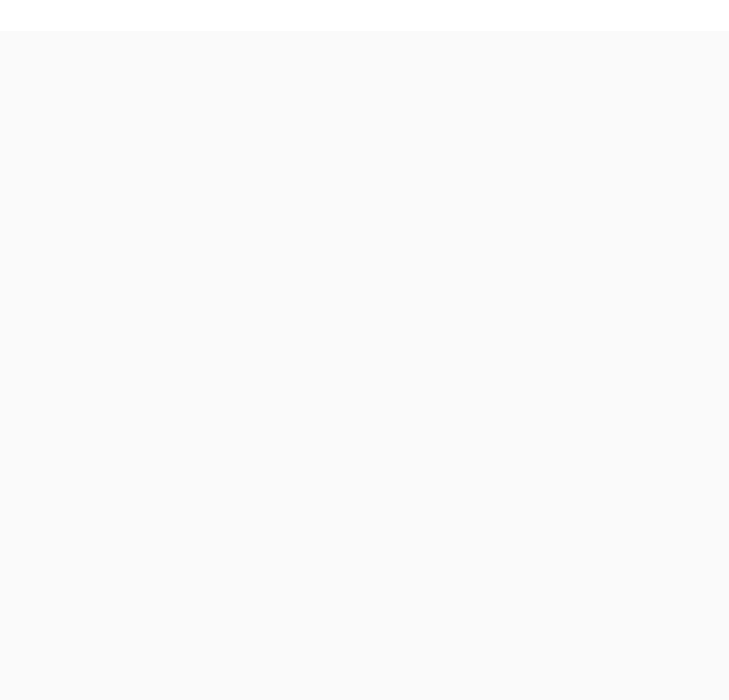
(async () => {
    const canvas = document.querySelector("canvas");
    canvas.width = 729;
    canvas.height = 700;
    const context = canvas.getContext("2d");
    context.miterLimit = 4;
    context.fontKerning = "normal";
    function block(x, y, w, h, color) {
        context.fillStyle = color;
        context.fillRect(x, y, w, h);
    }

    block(0, 0, 729, 700, "rgb(255, 255, 255)");
    block(0, 31, 729, 669, "rgb(250, 250, 250)");
})();
